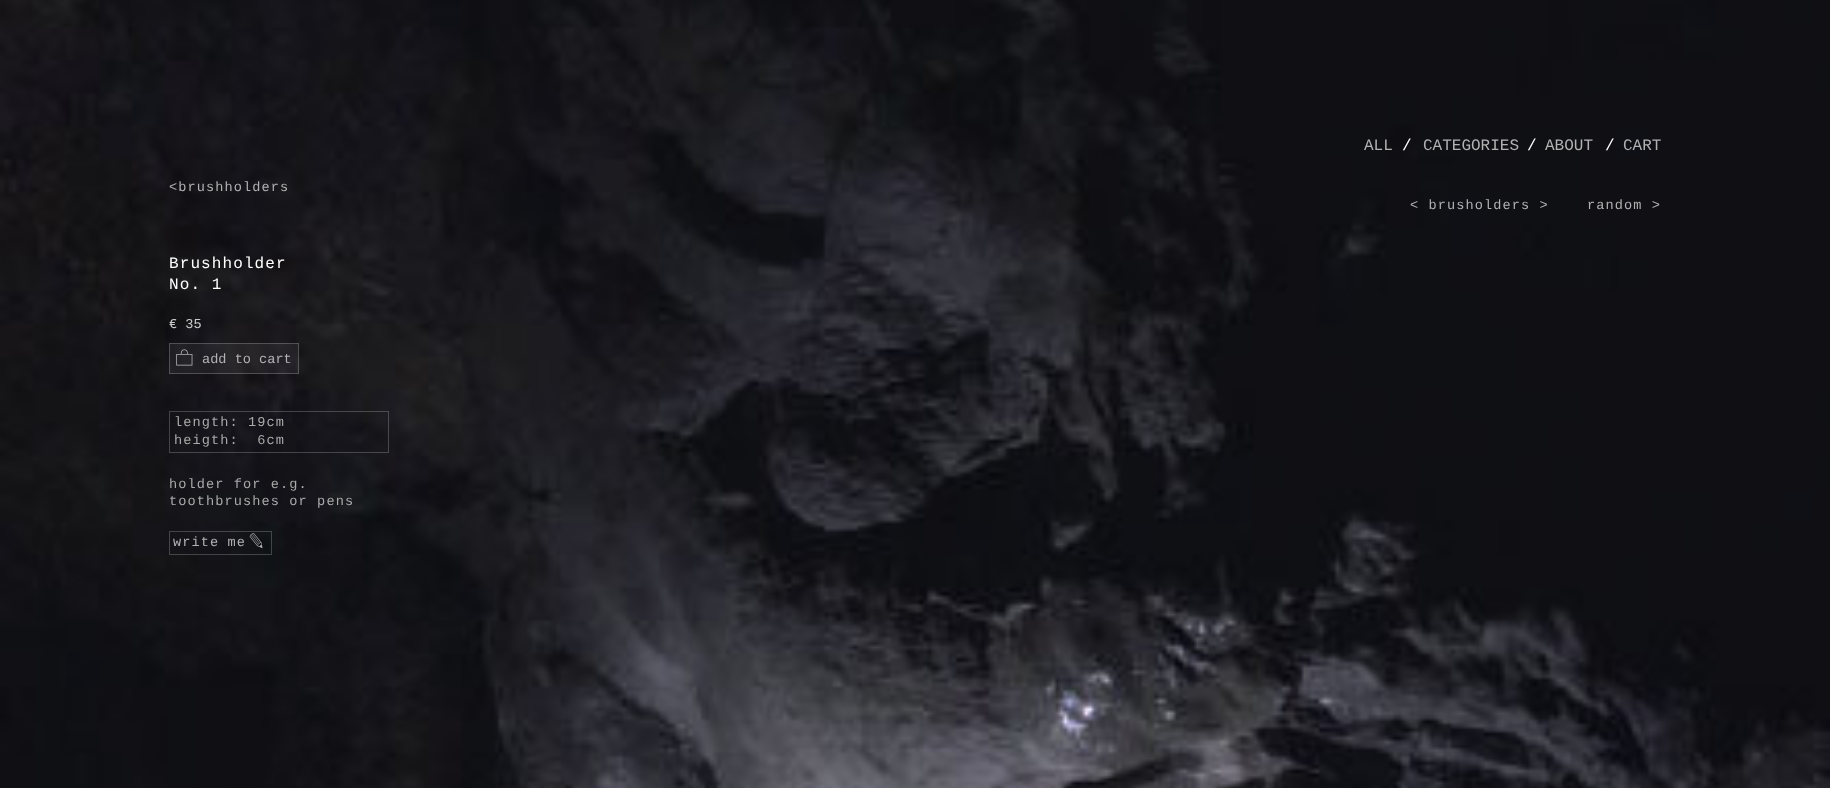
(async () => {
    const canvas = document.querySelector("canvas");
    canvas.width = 1830;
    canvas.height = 788;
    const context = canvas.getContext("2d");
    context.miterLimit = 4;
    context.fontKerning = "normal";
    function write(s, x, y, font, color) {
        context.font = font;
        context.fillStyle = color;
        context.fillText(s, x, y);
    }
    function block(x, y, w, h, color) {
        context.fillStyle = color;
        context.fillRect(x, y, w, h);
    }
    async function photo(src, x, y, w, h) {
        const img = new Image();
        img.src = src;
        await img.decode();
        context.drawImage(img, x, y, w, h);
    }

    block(0, 0, 1830, 788, "rgb(255, 255, 255)");
    await photo("media/1.png", 0, 0, 1830, 788);
    write("ALL", 1364, 150, "16px Liberation Mono", "rgb(178, 178, 179)");
    write("/", 1402, 150, "16px Liberation Mono", "rgb(255, 255, 255)");
    write("CATEGORIES", 1423, 150, "16px Liberation Mono", "rgb(178, 178, 179)");
    write("/", 1527, 150, "16px Liberation Mono", "rgb(255, 255, 255)");
    write("ABOUT", 1545, 150, "16px Liberation Mono", "rgb(178, 178, 179)");
    write("/", 1605, 150, "16px Liberation Mono", "rgb(255, 255, 255)");
    write("CART", 1623, 150, "16px Liberation Mono", "rgb(178, 178, 179)");
    context.letterSpacing = "1.1px";
    write("<brushholders", 169, 191, "13.6px Liberation Mono", "rgb(178, 178, 179)");
    write("< brusholders >", 1410, 209, "13.6px Liberation Mono", "rgb(178, 178, 179)");
    write("random >", 1587, 209, "13.6px Liberation Mono", "rgb(178, 178, 179)");
    write("Brushholder", 169, 268, "16px Liberation Mono", "rgb(255, 255, 255)");
    write("No. 1", 169, 289, "16px Liberation Mono", "rgb(255, 255, 255)");
    context.letterSpacing = "0px";
    write("€ 35", 169, 328, "13.6px Liberation Mono", "rgb(204, 203, 204)");
    block(169, 343, 130, 31, "rgba(255, 255, 255, 0.06)");
    context.strokeStyle = "rgba(255, 255, 255, 0.21)";
    context.strokeRect(169.5, 343.5, 129, 30);
    await photo("media/2.png", 176, 349, 17, 17);
    write("add to cart", 202, 363, "13.6px Liberation Mono", "rgb(178, 178, 179)");
    context.strokeRect(169.5, 411.5, 219, 41);
    context.letterSpacing = "1.1px";
    write("length: 19cm", 174, 426, "13.6px Liberation Mono", "rgb(170, 170, 170)");
    write("heigth:  6cm", 174, 444, "13.6px Liberation Mono", "rgb(170, 170, 170)");
    write("holder for e.g.", 169, 488, "13.6px Liberation Mono", "rgb(170, 170, 170)");
    write("toothbrushes or pens", 169, 505, "13.6px Liberation Mono", "rgb(170, 170, 170)");
    context.strokeRect(169.5, 531.5, 102, 23);
    context.wordSpacing = "-1px";
    write("write me", 173, 546, "13.6px Liberation Mono", "rgb(178, 178, 179)");
    await photo("media/3.png", 249, 533, 14, 16);
})();
